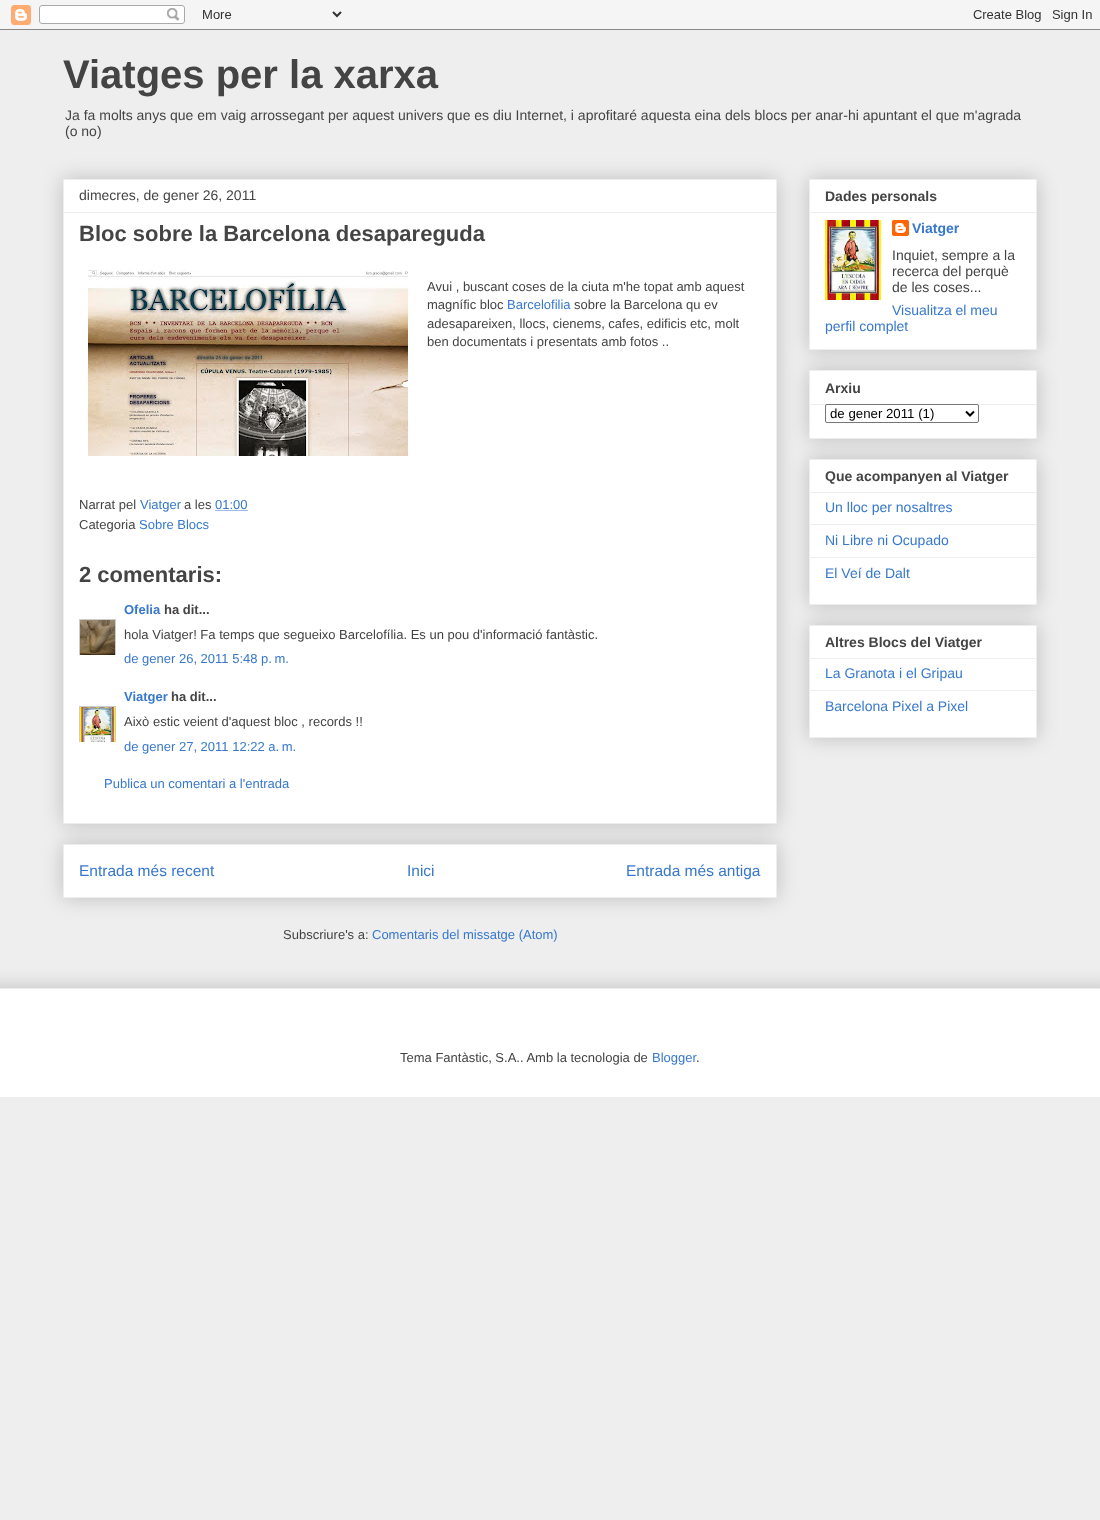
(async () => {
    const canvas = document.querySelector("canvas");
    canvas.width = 1100;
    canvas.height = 1520;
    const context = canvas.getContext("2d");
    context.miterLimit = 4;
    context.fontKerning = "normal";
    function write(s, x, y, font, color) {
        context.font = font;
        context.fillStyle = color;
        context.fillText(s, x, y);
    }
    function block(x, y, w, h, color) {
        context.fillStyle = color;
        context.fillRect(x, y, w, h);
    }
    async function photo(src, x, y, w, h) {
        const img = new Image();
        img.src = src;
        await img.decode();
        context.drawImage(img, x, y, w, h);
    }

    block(0, 0, 1100, 1520, "rgb(238, 238, 238)");
    await photo("media/1.png", 0, 0, 1100, 30);
    write("Viatges per la xarxa", 63, 88, "bold 40px Liberation Sans", "rgb(68, 68, 68)");
    write("Ja fa molts anys que em vaig arrossegant per aquest univers que es diu Internet, i aprofitaré aquesta eina dels blocs per anar-hi apuntant el que m'agrada", 65, 120, "14px Liberation Sans", "rgb(68, 68, 68)");
    write("(o no)", 65, 136, "14px Liberation Sans", "rgb(68, 68, 68)");
    context.fillStyle = "rgba(0, 0, 0, 0.2)";
    context.filter = "blur(10px)";
    context.beginPath();
    context.rect(63, 844, 714, 54);
    context.fill();
    context.filter = "none";
    context.fillStyle = "rgb(255, 255, 255)";
    context.beginPath();
    context.rect(63.5, 844.5, 713, 53);
    context.fill();
    context.strokeStyle = "rgb(238, 238, 238)";
    context.stroke();
    context.fillStyle = "rgba(0, 0, 0, 0.2)";
    context.filter = "blur(10px)";
    context.beginPath();
    context.rect(63, 179, 714, 645);
    context.fill();
    context.filter = "none";
    context.fillStyle = "rgb(255, 255, 255)";
    context.beginPath();
    context.rect(63.5, 179.5, 713, 644);
    context.fill();
    context.stroke();
    write("dimecres, de gener 26, 2011", 79, 200, "14px Liberation Sans", "rgb(68, 68, 68)");
    block(64, 212, 712, 1, "rgb(238, 238, 238)");
    write("Bloc sobre la Barcelona desapareguda", 79, 241, "bold 22px Liberation Sans", "rgb(68, 68, 68)");
    await photo("media/2.png", 88, 269, 320, 187);
    write("Avui , buscant coses de la ciuta m'he topat amb aquest", 427, 291, "13px Liberation Sans", "rgb(68, 68, 68)");
    write("magnífic bloc", 427, 309, "13px Liberation Sans", "rgb(68, 68, 68)");
    write("Barcelofilia", 507, 309, "13px Liberation Sans", "rgb(55, 120, 205)");
    write("sobre la Barcelona qu ev", 574, 309, "13px Liberation Sans", "rgb(68, 68, 68)");
    write("adesapareixen, llocs, cienems, cafes, edificis etc, molt", 427, 328, "13px Liberation Sans", "rgb(68, 68, 68)");
    write("ben documentats i presentats amb fotos ..", 427, 346, "13px Liberation Sans", "rgb(68, 68, 68)");
    write("Narrat pel", 79, 509, "13px Liberation Sans", "rgb(68, 68, 68)");
    write("Viatger", 140, 509, "13px Liberation Sans", "rgb(55, 120, 205)");
    write("a les", 184, 509, "13px Liberation Sans", "rgb(68, 68, 68)");
    write("01:00", 215, 509, "13px Liberation Sans", "rgb(55, 120, 205)");
    context.beginPath();
    context.moveTo(215.5, 510.5);
    context.lineTo(248, 510.5);
    context.strokeStyle = "rgb(55, 120, 205)";
    context.setLineDash([1, 1]);
    context.stroke();
    write("Categoria", 79, 529, "13px Liberation Sans", "rgb(68, 68, 68)");
    write("Sobre Blocs", 139, 529, "13px Liberation Sans", "rgb(55, 120, 205)");
    write("2 comentaris:", 79, 582, "bold 22px Liberation Sans", "rgb(68, 68, 68)");
    write("Ofelia", 124, 614, "bold 13px Liberation Sans", "rgb(55, 120, 205)");
    write("ha dit...", 164, 614, "bold 13px Liberation Sans", "rgb(68, 68, 68)");
    context.save();
    context.beginPath();
    context.rect(79, 619, 37, 36);
    context.clip();
    context.strokeStyle = "rgb(204, 204, 204)";
    context.setLineDash([]);
    context.strokeRect(79.5, 619.5, 36, 36);
    context.restore();
    await photo("media/3.png", 80, 620, 35, 35);
    write("hola Viatger! Fa temps que segueixo Barcelofília. Es un pou d'informació fantàstic.", 124, 639, "13px Liberation Sans", "rgb(68, 68, 68)");
    write("de gener 26, 2011 5:48 p. m.", 124, 663, "13px Liberation Sans", "rgb(55, 120, 205)");
    write("Viatger", 124, 701, "bold 13px Liberation Sans", "rgb(55, 120, 205)");
    write("ha dit...", 171, 701, "bold 13px Liberation Sans", "rgb(68, 68, 68)");
    context.save();
    context.beginPath();
    context.rect(79, 706, 37, 36);
    context.clip();
    context.strokeStyle = "rgb(204, 204, 204)";
    context.setLineDash([]);
    context.strokeRect(79.5, 706.5, 36, 36);
    context.restore();
    await photo("media/4.png", 80, 707, 35, 35);
    write("Això estic veient d'aquest bloc , records !!", 124, 726, "13px Liberation Sans", "rgb(68, 68, 68)");
    write("de gener 27, 2011 12:22 a. m.", 124, 751, "13px Liberation Sans", "rgb(55, 120, 205)");
    write("Publica un comentari a l'entrada", 104, 788, "13px Liberation Sans", "rgb(55, 120, 205)");
    write("Entrada més recent", 79, 876, "15.5px Liberation Sans", "rgb(55, 120, 205)");
    write("Inici", 407, 876, "15.5px Liberation Sans", "rgb(55, 120, 205)");
    write("Entrada més antiga", 626, 876, "15.5px Liberation Sans", "rgb(55, 120, 205)");
    write("Subscriure's a:", 283, 939, "13px Liberation Sans", "rgb(68, 68, 68)");
    write("Comentaris del missatge (Atom)", 372, 939, "13px Liberation Sans", "rgb(55, 120, 205)");
    context.fillStyle = "rgba(0, 0, 0, 0.2)";
    context.filter = "blur(10px)";
    context.beginPath();
    context.rect(809, 179, 228, 171);
    context.fill();
    context.filter = "none";
    context.fillStyle = "rgb(255, 255, 255)";
    context.beginPath();
    context.rect(809.5, 179.5, 227, 170);
    context.fill();
    context.strokeStyle = "rgb(238, 238, 238)";
    context.setLineDash([]);
    context.stroke();
    write("Dades personals", 825, 201, "bold 14px Liberation Sans", "rgb(68, 68, 68)");
    block(810, 212, 226, 1, "rgb(238, 238, 238)");
    await photo("media/5.png", 825, 220, 56, 80);
    await photo("media/6.png", 892, 220, 17, 16);
    write("Viatger", 912, 233, "bold 14px Liberation Sans", "rgb(55, 120, 205)");
    write("Inquiet, sempre a la", 892, 260, "14px Liberation Sans", "rgb(68, 68, 68)");
    write("recerca del perquè", 892, 276, "14px Liberation Sans", "rgb(68, 68, 68)");
    write("de les coses...", 892, 292, "14px Liberation Sans", "rgb(68, 68, 68)");
    write("Visualitza el meu", 892, 315, "14px Liberation Sans", "rgb(55, 120, 205)");
    write("perfil complet", 825, 331, "14px Liberation Sans", "rgb(55, 120, 205)");
    context.fillStyle = "rgba(0, 0, 0, 0.2)";
    context.filter = "blur(10px)";
    context.beginPath();
    context.rect(809, 370, 228, 69);
    context.fill();
    context.filter = "none";
    context.fillStyle = "rgb(255, 255, 255)";
    context.beginPath();
    context.rect(809.5, 370.5, 227, 68);
    context.fill();
    context.stroke();
    write("Arxiu", 825, 393, "bold 14px Liberation Sans", "rgb(68, 68, 68)");
    block(810, 404, 226, 1, "rgb(238, 238, 238)");
    context.fillStyle = "rgb(255, 255, 255)";
    context.beginPath();
    context.roundRect(825.5, 404.5, 153, 18, 1.5);
    context.fill();
    context.strokeStyle = "rgb(118, 118, 118)";
    context.stroke();
    context.beginPath();
    context.moveTo(966, 411.5);
    context.lineTo(970, 415.5);
    context.lineTo(974, 411.5);
    context.strokeStyle = "rgb(0, 0, 0)";
    context.lineWidth = 2;
    context.stroke();
    write("de gener 2011 (1)", 830, 418, "13.25px Liberation Sans", "rgb(0, 0, 0)");
    context.fillStyle = "rgba(0, 0, 0, 0.2)";
    context.filter = "blur(10px)";
    context.beginPath();
    context.rect(809, 459, 228, 146);
    context.fill();
    context.filter = "none";
    context.fillStyle = "rgb(255, 255, 255)";
    context.beginPath();
    context.rect(809.5, 459.5, 227, 145);
    context.fill();
    context.strokeStyle = "rgb(238, 238, 238)";
    context.lineWidth = 1;
    context.stroke();
    write("Que acompanyen al Viatger", 825, 481, "bold 14px Liberation Sans", "rgb(68, 68, 68)");
    block(810, 492, 226, 1, "rgb(238, 238, 238)");
    write("Un lloc per nosaltres", 825, 512, "14px Liberation Sans", "rgb(55, 120, 205)");
    block(810, 524, 226, 1, "rgb(238, 238, 238)");
    write("Ni Libre ni Ocupado", 825, 545, "14px Liberation Sans", "rgb(55, 120, 205)");
    block(810, 557, 226, 1, "rgb(238, 238, 238)");
    write("El Veí de Dalt", 825, 578, "14px Liberation Sans", "rgb(55, 120, 205)");
    context.fillStyle = "rgba(0, 0, 0, 0.2)";
    context.filter = "blur(10px)";
    context.beginPath();
    context.rect(809, 625, 228, 113);
    context.fill();
    context.filter = "none";
    context.fillStyle = "rgb(255, 255, 255)";
    context.beginPath();
    context.rect(809.5, 625.5, 227, 112);
    context.fill();
    context.stroke();
    write("Altres Blocs del Viatger", 825, 647, "bold 14px Liberation Sans", "rgb(68, 68, 68)");
    block(810, 658, 226, 1, "rgb(238, 238, 238)");
    write("La Granota i el Gripau", 825, 678, "14px Liberation Sans", "rgb(55, 120, 205)");
    block(810, 690, 226, 1, "rgb(238, 238, 238)");
    write("Barcelona Pixel a Pixel", 825, 711, "14px Liberation Sans", "rgb(55, 120, 205)");
    context.save();
    context.beginPath();
    context.rect(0, 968, 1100, 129);
    context.clip();
    context.fillStyle = "rgba(0, 0, 0, 0.2)";
    context.filter = "blur(10px)";
    context.beginPath();
    context.rect(-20, 988, 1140, 109);
    context.fill();
    context.filter = "none";
    context.restore();
    block(0, 989, 1100, 108, "rgb(255, 255, 255)");
    block(0, 988, 1100, 1, "rgb(238, 238, 238)");
    write("Tema Fantàstic, S.A.. Amb la tecnologia de", 400, 1062, "13px Liberation Sans", "rgb(68, 68, 68)");
    write("Blogger", 652, 1062, "13px Liberation Sans", "rgb(55, 120, 205)");
    write(".", 696, 1062, "13px Liberation Sans", "rgb(68, 68, 68)");
})();
